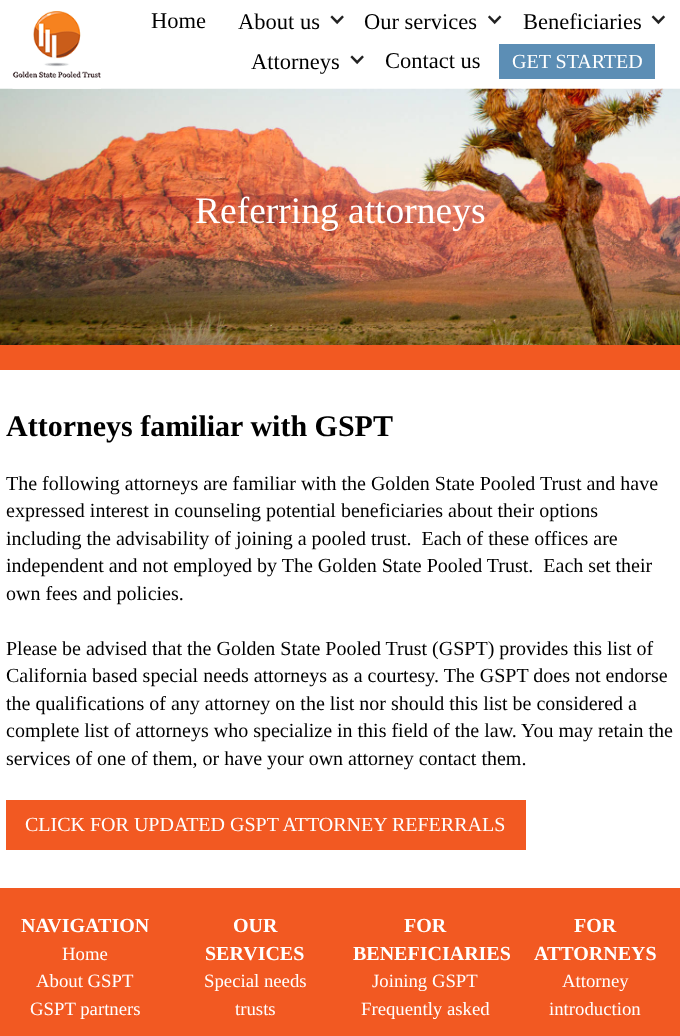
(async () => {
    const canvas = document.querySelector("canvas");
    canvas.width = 680;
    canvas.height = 1036;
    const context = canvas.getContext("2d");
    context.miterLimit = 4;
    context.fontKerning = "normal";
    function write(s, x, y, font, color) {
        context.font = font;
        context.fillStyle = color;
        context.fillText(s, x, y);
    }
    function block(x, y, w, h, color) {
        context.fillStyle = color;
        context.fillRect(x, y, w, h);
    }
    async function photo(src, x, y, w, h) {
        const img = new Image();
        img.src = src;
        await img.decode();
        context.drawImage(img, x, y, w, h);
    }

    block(0, 0, 680, 1036, "rgb(255, 255, 255)");
    await photo("media/5.png", 0, 88, 680, 257);
    await photo("media/1.png", 12, 11, 89, 78);
    write("Home", 151, 28, "22.5px Liberation Serif", "rgb(0, 0, 0)");
    write("About us", 238, 29, "22.5px Liberation Serif", "rgb(0, 0, 0)");
    await photo("media/2.png", 330, 15, 14, 10);
    write("Our services", 364, 29, "22.5px Liberation Serif", "rgb(0, 0, 0)");
    await photo("media/3.png", 488, 15, 14, 10);
    write("Beneficiaries", 523, 29, "22.5px Liberation Serif", "rgb(0, 0, 0)");
    await photo("media/4.png", 651, 15, 15, 10);
    write("Attorneys", 251, 69, "22.5px Liberation Serif", "rgb(0, 0, 0)");
    await photo("media/2.png", 350, 55, 14, 10);
    write("Contact us", 385, 68, "22.5px Liberation Serif", "rgb(0, 0, 0)");
    block(499, 44, 156, 35, "rgb(92, 142, 181)");
    write("GET STARTED", 512, 68, "20px Liberation Serif", "rgb(255, 255, 255)");
    block(0, 345, 680, 25, "rgb(242, 89, 34)");
    write("Referring attorneys", 195, 223, "37.5px Liberation Serif", "rgb(255, 255, 255)");
    write("Attorneys familiar with GSPT", 6, 436, "bold 30px Liberation Serif", "rgb(0, 0, 0)");
    write("The following attorneys are familiar with the Golden State Pooled Trust and have", 6, 490, "20px Liberation Serif", "rgb(0, 0, 0)");
    write("expressed interest in counseling potential beneficiaries about their options", 6, 517, "20px Liberation Serif", "rgb(0, 0, 0)");
    write("including the advisability of joining a pooled trust.  Each of these offices are", 6, 545, "20px Liberation Serif", "rgb(0, 0, 0)");
    write("independent and not employed by The Golden State Pooled Trust.  Each set their", 6, 572, "20px Liberation Serif", "rgb(0, 0, 0)");
    write("own fees and policies.", 6, 600, "20px Liberation Serif", "rgb(0, 0, 0)");
    write("Please be advised that the Golden State Pooled Trust (GSPT) provides this list of", 6, 655, "20px Liberation Serif", "rgb(0, 0, 0)");
    write("California based special needs attorneys as a courtesy. The GSPT does not endorse", 6, 682, "20px Liberation Serif", "rgb(0, 0, 0)");
    write("the qualifications of any attorney on the list nor should this list be considered a", 6, 710, "20px Liberation Serif", "rgb(0, 0, 0)");
    write("complete list of attorneys who specialize in this field of the law. You may retain the", 6, 737, "20px Liberation Serif", "rgb(0, 0, 0)");
    write("services of one of them, or have your own attorney contact them.", 6, 765, "20px Liberation Serif", "rgb(0, 0, 0)");
    block(6, 800, 520, 50, "rgb(242, 89, 34)");
    write("CLICK FOR UPDATED GSPT ATTORNEY REFERRALS", 25, 831, "20px Liberation Serif", "rgb(255, 255, 255)");
    block(0, 888, 680, 148, "rgb(242, 89, 34)");
    write("NAVIGATION", 21, 932, "bold 20px Liberation Serif", "rgb(255, 255, 255)");
    write("Home", 62, 960, "18.75px Liberation Serif", "rgb(255, 255, 255)");
    write("About GSPT", 36, 987, "18.75px Liberation Serif", "rgb(255, 255, 255)");
    write("GSPT partners", 30, 1015, "18.75px Liberation Serif", "rgb(255, 255, 255)");
    write("OUR", 233, 932, "bold 20px Liberation Serif", "rgb(255, 255, 255)");
    write("SERVICES", 205, 960, "bold 20px Liberation Serif", "rgb(255, 255, 255)");
    write("Special needs", 204, 987, "18.75px Liberation Serif", "rgb(255, 255, 255)");
    write("trusts", 235, 1015, "18.75px Liberation Serif", "rgb(255, 255, 255)");
    write("FOR", 404, 932, "bold 20px Liberation Serif", "rgb(255, 255, 255)");
    write("BENEFICIARIES", 353, 960, "bold 20px Liberation Serif", "rgb(255, 255, 255)");
    write("Joining GSPT", 372, 987, "18.75px Liberation Serif", "rgb(255, 255, 255)");
    write("Frequently asked", 361, 1015, "18.75px Liberation Serif", "rgb(255, 255, 255)");
    write("FOR", 574, 932, "bold 20px Liberation Serif", "rgb(255, 255, 255)");
    write("ATTORNEYS", 534, 960, "bold 20px Liberation Serif", "rgb(255, 255, 255)");
    write("Attorney", 562, 987, "18.75px Liberation Serif", "rgb(255, 255, 255)");
    write("introduction", 549, 1015, "18.75px Liberation Serif", "rgb(255, 255, 255)");
})();
